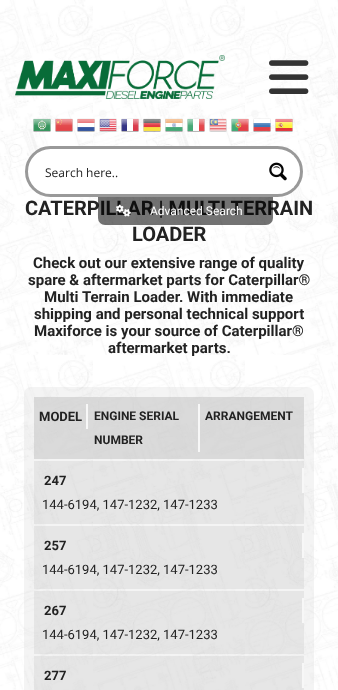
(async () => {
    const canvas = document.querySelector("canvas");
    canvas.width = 338;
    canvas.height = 690;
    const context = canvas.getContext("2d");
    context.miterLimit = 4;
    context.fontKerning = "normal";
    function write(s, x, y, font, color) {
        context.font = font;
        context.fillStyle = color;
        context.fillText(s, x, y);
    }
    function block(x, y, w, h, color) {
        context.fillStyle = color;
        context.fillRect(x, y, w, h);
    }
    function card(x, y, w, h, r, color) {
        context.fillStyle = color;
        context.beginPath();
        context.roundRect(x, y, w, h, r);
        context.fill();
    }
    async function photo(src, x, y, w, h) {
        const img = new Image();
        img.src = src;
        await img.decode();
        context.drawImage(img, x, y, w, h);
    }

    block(0, 0, 338, 690, "rgb(255, 255, 255)");
    await photo("media/1.png", 0, 0, 338, 690);
    await photo("media/2.png", 15, 55, 210, 44);
    await photo("media/3.png", 269, 60, 40, 34);
    await photo("media/4.png", 33, 118, 18, 14);
    await photo("media/5.png", 55, 118, 18, 14);
    await photo("media/6.png", 77, 118, 18, 14);
    await photo("media/7.png", 99, 118, 18, 14);
    await photo("media/8.png", 121, 118, 18, 14);
    await photo("media/9.png", 143, 118, 18, 14);
    await photo("media/10.png", 165, 118, 18, 14);
    await photo("media/11.png", 187, 118, 18, 14);
    await photo("media/12.png", 209, 118, 18, 14);
    await photo("media/13.png", 231, 118, 18, 14);
    await photo("media/14.png", 253, 118, 18, 14);
    await photo("media/15.png", 275, 118, 18, 14);
    context.beginPath();
    context.roundRect(26.5, 147.5, 275, 48, 24);
    context.fill();
    context.strokeStyle = "rgb(153, 153, 153)";
    context.lineWidth = 3;
    context.stroke();
    write("Search here..", 45, 177, "12px Open Sans", "rgb(34, 34, 34)");
    context.save();
    context.beginPath();
    context.rect(261, 155, 33, 33);
    context.clip();
    context.fillStyle = "rgba(255, 255, 255, 0.64)";
    context.beginPath();
    context.moveTo(260, 156);
    context.lineTo(260, 189);
    context.lineTo(292, 189);
    context.bezierCurveTo(288, 192, 283, 194, 278, 194);
    context.lineTo(162, 194);
    context.lineTo(162, 149);
    context.lineTo(278, 149);
    context.bezierCurveTo(290, 149, 300, 159, 300, 172);
    context.bezierCurveTo(300, 178, 297, 184, 293, 188);
    context.lineTo(293, 156);
    context.closePath();
    context.fill();
    context.restore();
    await photo("media/16.png", 269, 162, 18, 19);
    write("CATERPILLAR | MULTI TERRAIN", 25, 215, "bold 20px Roboto", "rgb(34, 34, 34)");
    context.fillStyle = "rgba(0, 0, 0, 0.55)";
    context.beginPath();
    context.roundRect(98, 197, 175, 28, [0, 0, 7, 7]);
    context.fill();
    await photo("media/17.png", 116, 204, 15, 13);
    write("Advanced Search", 150, 215, "12px Roboto", "rgb(255, 255, 255)");
    write("LOADER", 132, 241, "bold 20px Roboto", "rgb(34, 34, 34)");
    write("Check out our extensive range of quality", 33, 268, "bold 15px Roboto", "rgb(34, 34, 34)");
    write("spare & aftermarket parts for Caterpillar®", 28, 285, "bold 15px Roboto", "rgb(34, 34, 34)");
    write("Multi Terrain Loader. With immediate", 44, 302, "bold 15px Roboto", "rgb(34, 34, 34)");
    write("shipping and personal technical support", 34, 319, "bold 15px Roboto", "rgb(34, 34, 34)");
    write("Maxiforce is your source of Caterpillar®", 34, 336, "bold 15px Roboto", "rgb(34, 34, 34)");
    write("aftermarket parts.", 108, 353, "bold 15px Roboto", "rgb(34, 34, 34)");
    card(24, 387, 290, 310, 7, "rgba(200, 200, 200, 0.2)");
    block(34, 397, 270, 62, "rgba(200, 200, 200, 0.6)");
    block(86, 404, 2, 25, "rgb(247, 247, 247)");
    write("MODEL", 39, 421, "bold 13px Roboto", "rgb(34, 34, 34)");
    block(198, 404, 2, 48, "rgb(247, 247, 247)");
    write("ENGINE SERIAL", 94, 420, "bold 12px Roboto", "rgb(34, 34, 34)");
    write("NUMBER", 94, 444, "bold 12px Roboto", "rgb(34, 34, 34)");
    write("ARRANGEMENT", 205, 420, "bold 12px Roboto", "rgb(34, 34, 34)");
    block(34, 461, 270, 63, "rgba(200, 200, 200, 0.3)");
    block(302, 468, 2, 25, "rgb(247, 247, 247)");
    write("247", 44, 485, "bold 13px Roboto", "rgb(34, 34, 34)");
    write("144-6194, 147-1232, 147-1233", 42, 509, "13px Roboto", "rgb(34, 34, 34)");
    block(34, 526, 270, 63, "rgba(200, 200, 200, 0.3)");
    block(302, 533, 2, 25, "rgb(247, 247, 247)");
    write("257", 44, 550, "bold 13px Roboto", "rgb(34, 34, 34)");
    write("144-6194, 147-1232, 147-1233", 42, 574, "13px Roboto", "rgb(34, 34, 34)");
    block(34, 591, 270, 63, "rgba(200, 200, 200, 0.3)");
    block(302, 598, 2, 25, "rgb(247, 247, 247)");
    write("267", 44, 615, "bold 13px Roboto", "rgb(34, 34, 34)");
    write("144-6194, 147-1232, 147-1233", 42, 639, "13px Roboto", "rgb(34, 34, 34)");
    block(34, 656, 270, 34, "rgba(200, 200, 200, 0.3)");
    block(302, 663, 2, 25, "rgb(247, 247, 247)");
    write("277", 44, 680, "bold 13px Roboto", "rgb(34, 34, 34)");
})();
